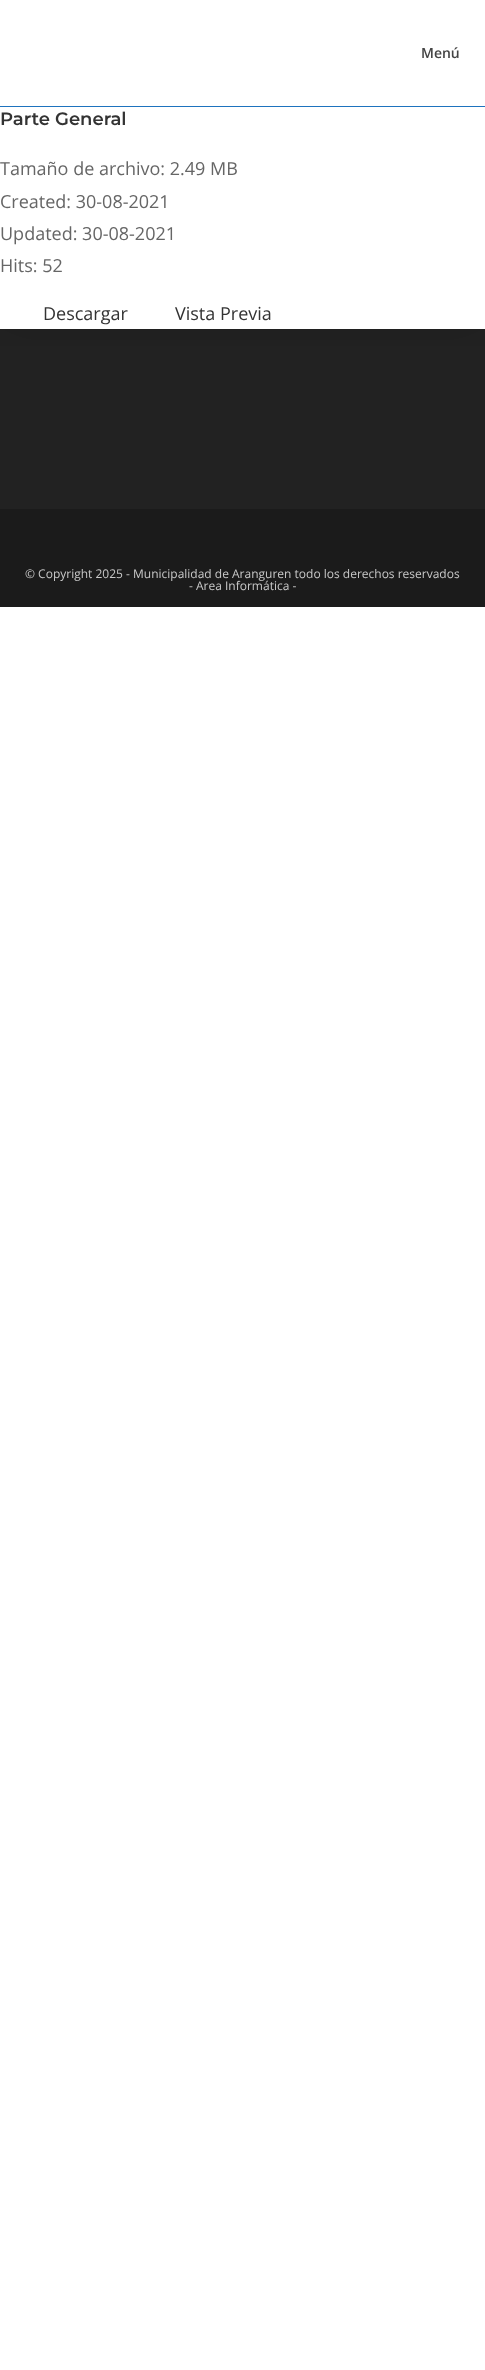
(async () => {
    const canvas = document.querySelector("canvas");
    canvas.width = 485;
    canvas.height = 2370;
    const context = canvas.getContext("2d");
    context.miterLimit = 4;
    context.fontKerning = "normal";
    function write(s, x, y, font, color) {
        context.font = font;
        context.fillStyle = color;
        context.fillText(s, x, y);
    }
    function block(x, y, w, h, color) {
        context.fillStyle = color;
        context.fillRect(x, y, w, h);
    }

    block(0, 0, 485, 2370, "rgb(255, 255, 255)");
    block(0, 329, 485, 180, "rgb(34, 34, 34)");
    context.save();
    context.beginPath();
    context.rect(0, 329, 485, 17);
    context.clip();
    context.fillStyle = "rgba(0, 0, 0, 0.1)";
    context.filter = "blur(20px)";
    context.beginPath();
    context.rect(0, 107, 485, 222);
    context.fill();
    context.filter = "none";
    context.restore();
    block(0, 81, 485, 25, "rgb(255, 255, 255)");
    block(0, 106, 485, 1, "rgb(30, 115, 190)");
    write("Menú", 421, 58, "600 14px Open Sans", "rgb(68, 68, 68)");
    write("Parte General", 0, 125, "600 18px Montserrat", "rgb(51, 51, 51)");
    write("Tamaño de archivo: 2.49 MB", 0, 175, "18px Open Sans", "rgb(102, 102, 102)");
    write("Created: 30-08-2021", 0, 208, "18px Open Sans", "rgb(102, 102, 102)");
    write("Updated: 30-08-2021", 0, 240, "18px Open Sans", "rgb(102, 102, 102)");
    write("Hits: 52", 0, 272, "18px Open Sans", "rgb(102, 102, 102)");
    write("Descargar", 43, 320, "18px Open Sans", "rgb(51, 51, 51)");
    write("Vista Previa", 175, 320, "18px Open Sans", "rgb(51, 51, 51)");
    block(0, 509, 485, 98, "rgb(27, 27, 27)");
    write("© Copyright 2025 - Municipalidad de Aranguren todo los derechos reservados", 25, 578, "12px Open Sans", "rgb(201, 201, 201)");
    write("- Area Informática -", 189, 590, "12px Open Sans", "rgb(201, 201, 201)");
})();
